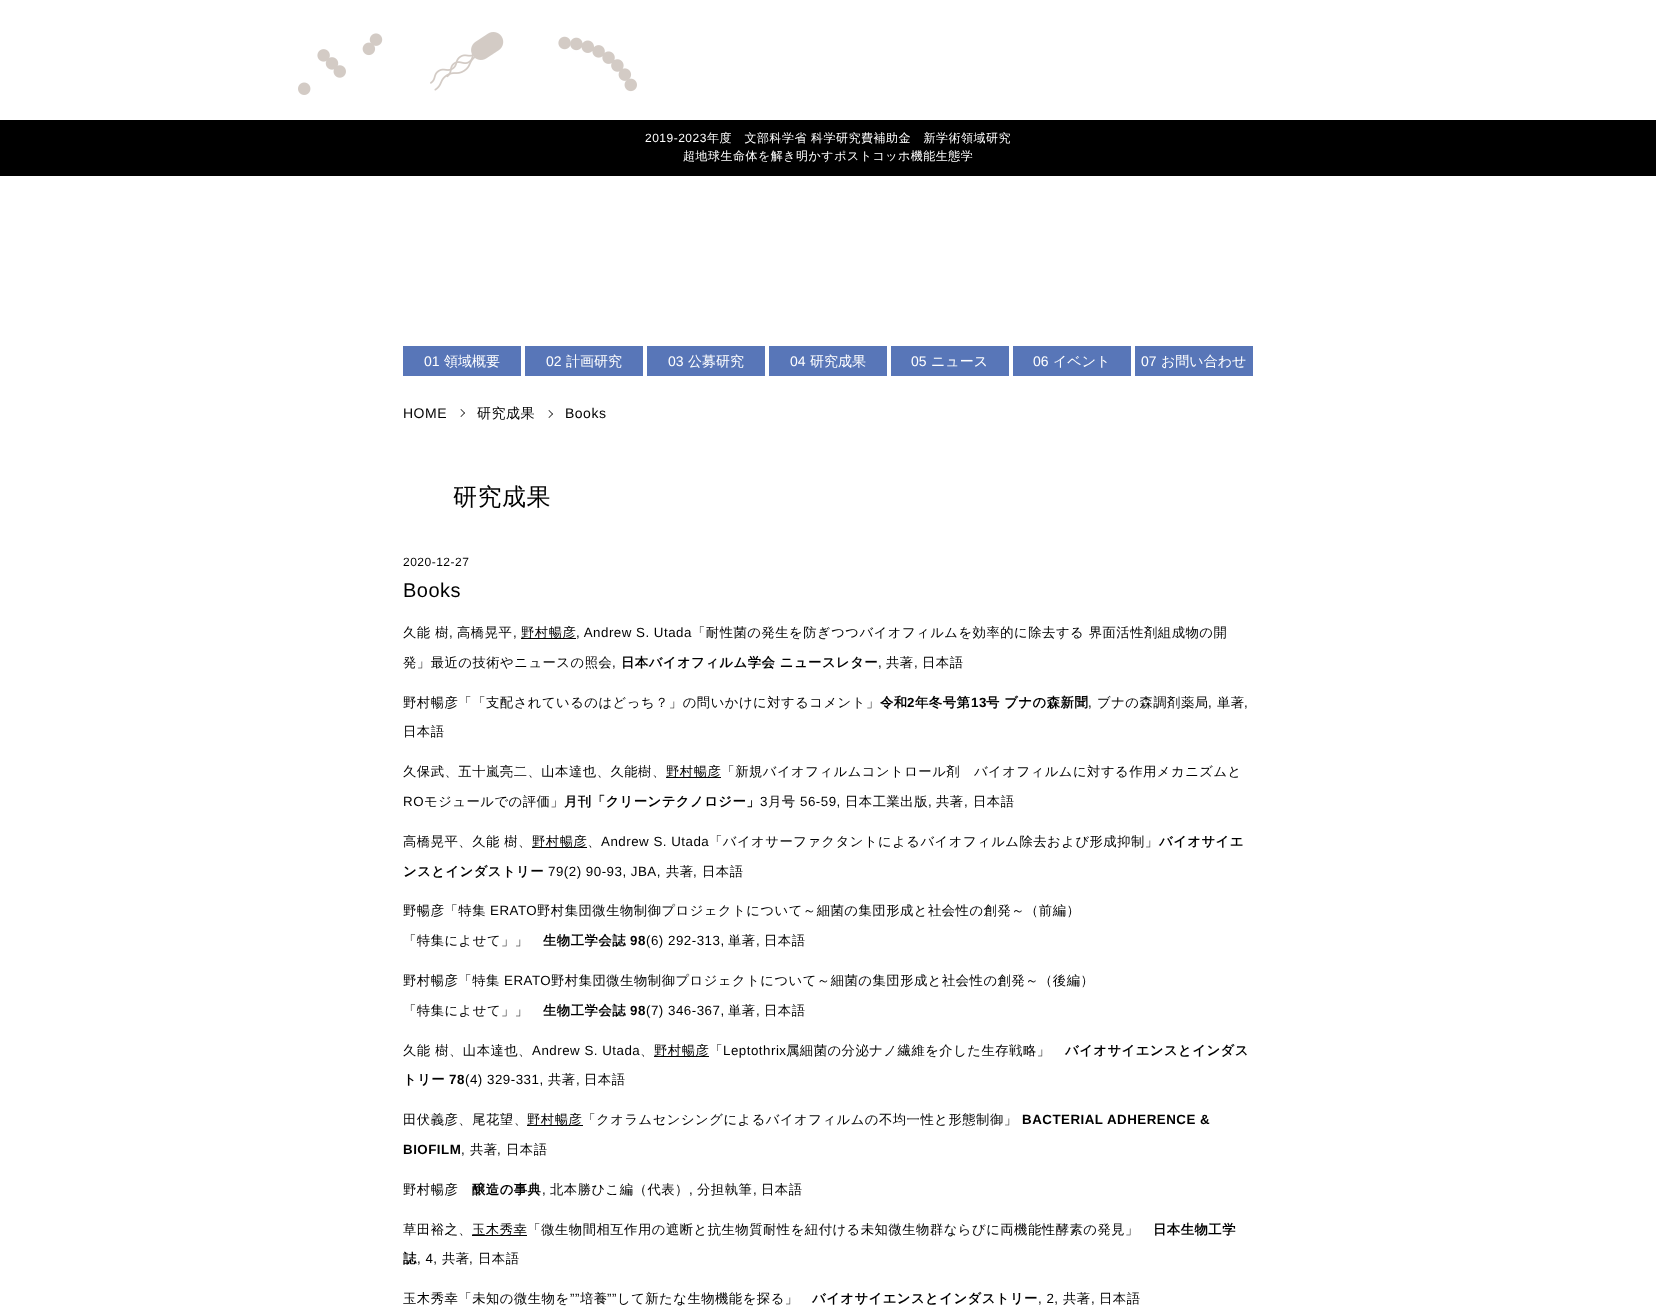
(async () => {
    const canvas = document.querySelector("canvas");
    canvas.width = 1656;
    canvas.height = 1308;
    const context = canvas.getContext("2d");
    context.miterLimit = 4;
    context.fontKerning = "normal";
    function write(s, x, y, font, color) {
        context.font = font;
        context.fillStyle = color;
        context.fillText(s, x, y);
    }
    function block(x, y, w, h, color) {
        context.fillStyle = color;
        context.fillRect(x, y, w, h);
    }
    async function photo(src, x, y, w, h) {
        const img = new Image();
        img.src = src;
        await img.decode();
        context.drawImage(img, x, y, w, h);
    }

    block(0, 0, 1656, 1308, "rgb(255, 255, 255)");
    await photo("media/1.png", 298, 32, 339, 63);
    block(0, 120, 1656, 56, "rgb(0, 0, 0)");
    context.letterSpacing = "0.5px";
    write("2019-2023", 645, 142, "12px Liberation Sans", "rgb(255, 255, 255)");
    write("年度　文部科学省 科学研究費補助金　新学術領域研究", 707, 142, "500 12px WenQuanYi Zen Hei", "rgb(255, 255, 255)");
    write("超地球生命体を解き明かすポストコッホ機能生態学", 683, 160, "500 12px WenQuanYi Zen Hei", "rgb(255, 255, 255)");
    block(403, 346, 118, 30, "rgb(88, 118, 184)");
    context.letterSpacing = "0px";
    write("01", 424, 366, "14px Liberation Sans", "rgb(255, 255, 255)");
    write("領域概要", 444, 366, "500 14px WenQuanYi Zen Hei", "rgb(255, 255, 255)");
    block(525, 346, 118, 30, "rgb(88, 118, 184)");
    write("02", 546, 366, "14px Liberation Sans", "rgb(255, 255, 255)");
    write("計画研究", 566, 366, "500 14px WenQuanYi Zen Hei", "rgb(255, 255, 255)");
    block(647, 346, 118, 30, "rgb(88, 118, 184)");
    write("03", 668, 366, "14px Liberation Sans", "rgb(255, 255, 255)");
    write("公募研究", 688, 366, "500 14px WenQuanYi Zen Hei", "rgb(255, 255, 255)");
    block(769, 346, 118, 30, "rgb(88, 118, 184)");
    write("04", 790, 366, "14px Liberation Sans", "rgb(255, 255, 255)");
    write("研究成果", 810, 366, "500 14px WenQuanYi Zen Hei", "rgb(255, 255, 255)");
    block(891, 346, 118, 30, "rgb(88, 118, 184)");
    write("05", 911, 366, "14px Liberation Sans", "rgb(255, 255, 255)");
    write("ニュース", 931, 366, "500 14px WenQuanYi Zen Hei", "rgb(255, 255, 255)");
    block(1013, 346, 118, 30, "rgb(88, 118, 184)");
    write("06", 1033, 366, "14px Liberation Sans", "rgb(255, 255, 255)");
    write("イベント", 1053, 366, "500 14px WenQuanYi Zen Hei", "rgb(255, 255, 255)");
    block(1135, 346, 118, 30, "rgb(88, 118, 184)");
    write("07", 1141, 366, "14px Liberation Sans", "rgb(255, 255, 255)");
    write("お問い合わせ", 1161, 366, "500 14px WenQuanYi Zen Hei", "rgb(255, 255, 255)");
    context.letterSpacing = "0.5px";
    write("HOME", 403, 418, "14px Liberation Sans", "rgb(0, 0, 0)");
    context.beginPath();
    context.moveTo(460.5, 409.5);
    context.lineTo(461, 409);
    context.lineTo(465, 413);
    context.lineTo(464.5, 413.5);
    context.closePath();
    context.fill();
    context.beginPath();
    context.moveTo(460.5, 416.5);
    context.lineTo(464.5, 412.5);
    context.lineTo(465, 413);
    context.lineTo(461, 417);
    context.closePath();
    context.fill();
    write("研究成果", 477, 418, "500 14px WenQuanYi Zen Hei", "rgb(0, 0, 0)");
    context.beginPath();
    context.moveTo(548.5, 410.5);
    context.lineTo(549, 410);
    context.lineTo(553, 414);
    context.lineTo(552.5, 414.5);
    context.closePath();
    context.fill();
    context.beginPath();
    context.moveTo(548.5, 417.5);
    context.lineTo(552.5, 413.5);
    context.lineTo(553, 414);
    context.lineTo(549, 418);
    context.closePath();
    context.fill();
    write("Books", 565, 418, "14px Liberation Sans", "rgb(0, 0, 0)");
    write("研究成果", 453, 505, "500 24px WenQuanYi Zen Hei", "rgb(0, 0, 0)");
    write("2020-12-27", 403, 566, "12px Liberation Sans", "rgb(0, 0, 0)");
    write("Books", 403, 597, "20px Liberation Sans", "rgb(0, 0, 0)");
    write("久能 樹", 403, 637, "500 13.33px WenQuanYi Zen Hei", "rgb(0, 0, 0)");
    write(",", 449, 637, "13.33px Liberation Sans", "rgb(0, 0, 0)");
    write("高橋晃平", 457, 637, "500 13.33px WenQuanYi Zen Hei", "rgb(0, 0, 0)");
    write(",", 513, 637, "13.33px Liberation Sans", "rgb(0, 0, 0)");
    block(521, 638, 55, 1, "rgb(0, 0, 0)");
    write("野村暢彦", 521, 637, "500 13.33px WenQuanYi Zen Hei", "rgb(0, 0, 0)");
    write(", Andrew S. Utada", 576, 637, "13.33px Liberation Sans", "rgb(0, 0, 0)");
    write("「耐性菌の発生を防ぎつつバイオフィルムを効率的に除去する 界面活性剤組成物の開", 692, 637, "500 13.33px WenQuanYi Zen Hei", "rgb(0, 0, 0)");
    write("発」最近の技術やニュースの照会", 403, 667, "500 13.33px WenQuanYi Zen Hei", "rgb(0, 0, 0)");
    write(",", 612, 667, "13.33px Liberation Sans", "rgb(0, 0, 0)");
    write("日本バイオフィルム学会 ニュースレター", 621, 667, "bold 13.33px WenQuanYi Zen Hei", "rgb(0, 0, 0)");
    write(",", 878, 667, "13.33px Liberation Sans", "rgb(0, 0, 0)");
    write("共著", 886, 667, "500 13.33px WenQuanYi Zen Hei", "rgb(0, 0, 0)");
    write(",", 914, 667, "13.33px Liberation Sans", "rgb(0, 0, 0)");
    write("日本語", 922, 667, "500 13.33px WenQuanYi Zen Hei", "rgb(0, 0, 0)");
    write("野村暢彦「「支配されているのはどっち？」の問いかけに対するコメント」", 403, 707, "500 13.33px WenQuanYi Zen Hei", "rgb(0, 0, 0)");
    write("令和", 880, 707, "bold 13.33px WenQuanYi Zen Hei", "rgb(0, 0, 0)");
    write("2", 907, 707, "bold 13.33px Liberation Sans", "rgb(0, 0, 0)");
    write("年冬号第", 915, 707, "bold 13.33px WenQuanYi Zen Hei", "rgb(0, 0, 0)");
    write("13", 971, 707, "bold 13.33px Liberation Sans", "rgb(0, 0, 0)");
    write("号 ブナの森新聞", 986, 707, "bold 13.33px WenQuanYi Zen Hei", "rgb(0, 0, 0)");
    write(",", 1088, 707, "13.33px Liberation Sans", "rgb(0, 0, 0)");
    write("ブナの森調剤薬局", 1097, 707, "500 13.33px WenQuanYi Zen Hei", "rgb(0, 0, 0)");
    write(",", 1208, 707, "13.33px Liberation Sans", "rgb(0, 0, 0)");
    write("単著", 1217, 707, "500 13.33px WenQuanYi Zen Hei", "rgb(0, 0, 0)");
    write(",", 1244, 707, "13.33px Liberation Sans", "rgb(0, 0, 0)");
    write("日本語", 403, 736, "500 13.33px WenQuanYi Zen Hei", "rgb(0, 0, 0)");
    write("久保武、五十嵐亮二、山本達也、久能樹、", 403, 776, "500 13.33px WenQuanYi Zen Hei", "rgb(0, 0, 0)");
    block(666, 777, 55, 1, "rgb(0, 0, 0)");
    write("野村暢彦「新規バイオフィルムコントロール剤　バイオフィルムに対する作用メカニズムと", 666, 776, "500 13.33px WenQuanYi Zen Hei", "rgb(0, 0, 0)");
    write("RO", 403, 806, "13.33px Liberation Sans", "rgb(0, 0, 0)");
    write("モジュールでの評価」", 424, 806, "500 13.33px WenQuanYi Zen Hei", "rgb(0, 0, 0)");
    write("月刊「クリーンテクノロジー」", 564, 806, "bold 13.33px WenQuanYi Zen Hei", "rgb(0, 0, 0)");
    write("3", 760, 806, "13.33px Liberation Sans", "rgb(0, 0, 0)");
    write("月号", 768, 806, "500 13.33px WenQuanYi Zen Hei", "rgb(0, 0, 0)");
    write("56-59,", 800, 806, "13.33px Liberation Sans", "rgb(0, 0, 0)");
    write("日本工業出版", 845, 806, "500 13.33px WenQuanYi Zen Hei", "rgb(0, 0, 0)");
    write(",", 928, 806, "13.33px Liberation Sans", "rgb(0, 0, 0)");
    write("共著", 936, 806, "500 13.33px WenQuanYi Zen Hei", "rgb(0, 0, 0)");
    write(",", 964, 806, "13.33px Liberation Sans", "rgb(0, 0, 0)");
    write("日本語", 973, 806, "500 13.33px WenQuanYi Zen Hei", "rgb(0, 0, 0)");
    write("高橋晃平、久能 樹、", 403, 846, "500 13.33px WenQuanYi Zen Hei", "rgb(0, 0, 0)");
    block(532, 847, 55, 1, "rgb(0, 0, 0)");
    write("野村暢彦、", 532, 846, "500 13.33px WenQuanYi Zen Hei", "rgb(0, 0, 0)");
    write("Andrew S. Utada", 601, 846, "13.33px Liberation Sans", "rgb(0, 0, 0)");
    write("「バイオサーファクタントによるバイオフィルム除去および形成抑制」", 709, 846, "500 13.33px WenQuanYi Zen Hei", "rgb(0, 0, 0)");
    write("バイオサイエ", 1159, 846, "bold 13.33px WenQuanYi Zen Hei", "rgb(0, 0, 0)");
    write("ンスとインダストリー", 403, 876, "bold 13.33px WenQuanYi Zen Hei", "rgb(0, 0, 0)");
    write("79(2) 90-93, JBA,", 548, 876, "13.33px Liberation Sans", "rgb(0, 0, 0)");
    write("共著", 666, 876, "500 13.33px WenQuanYi Zen Hei", "rgb(0, 0, 0)");
    write(",", 693, 876, "13.33px Liberation Sans", "rgb(0, 0, 0)");
    write("日本語", 702, 876, "500 13.33px WenQuanYi Zen Hei", "rgb(0, 0, 0)");
    write("野暢彦「特集", 403, 915, "500 13.33px WenQuanYi Zen Hei", "rgb(0, 0, 0)");
    write("ERATO", 490, 915, "13.33px Liberation Sans", "rgb(0, 0, 0)");
    write("野村集団微生物制御プロジェクトについて～細菌の集団形成と社会性の創発～（前編）", 537, 915, "500 13.33px WenQuanYi Zen Hei", "rgb(0, 0, 0)");
    write("「特集によせて」」", 403, 945, "500 13.33px WenQuanYi Zen Hei", "rgb(0, 0, 0)");
    write("生物工学会誌", 543, 945, "bold 13.33px WenQuanYi Zen Hei", "rgb(0, 0, 0)");
    write("98", 630, 945, "bold 13.33px Liberation Sans", "rgb(0, 0, 0)");
    write("(6) 292-313,", 646, 945, "13.33px Liberation Sans", "rgb(0, 0, 0)");
    write("単著", 728, 945, "500 13.33px WenQuanYi Zen Hei", "rgb(0, 0, 0)");
    write(",", 756, 945, "13.33px Liberation Sans", "rgb(0, 0, 0)");
    write("日本語", 764, 945, "500 13.33px WenQuanYi Zen Hei", "rgb(0, 0, 0)");
    write("野村暢彦「特集", 403, 985, "500 13.33px WenQuanYi Zen Hei", "rgb(0, 0, 0)");
    write("ERATO", 504, 985, "13.33px Liberation Sans", "rgb(0, 0, 0)");
    write("野村集団微生物制御プロジェクトについて～細菌の集団形成と社会性の創発～（後編）", 551, 985, "500 13.33px WenQuanYi Zen Hei", "rgb(0, 0, 0)");
    write("「特集によせて」」", 403, 1015, "500 13.33px WenQuanYi Zen Hei", "rgb(0, 0, 0)");
    write("生物工学会誌", 543, 1015, "bold 13.33px WenQuanYi Zen Hei", "rgb(0, 0, 0)");
    write("98", 630, 1015, "bold 13.33px Liberation Sans", "rgb(0, 0, 0)");
    write("(7) 346-367,", 646, 1015, "13.33px Liberation Sans", "rgb(0, 0, 0)");
    write("単著", 728, 1015, "500 13.33px WenQuanYi Zen Hei", "rgb(0, 0, 0)");
    write(",", 756, 1015, "13.33px Liberation Sans", "rgb(0, 0, 0)");
    write("日本語", 764, 1015, "500 13.33px WenQuanYi Zen Hei", "rgb(0, 0, 0)");
    write("久能 樹、山本達也、", 403, 1055, "500 13.33px WenQuanYi Zen Hei", "rgb(0, 0, 0)");
    write("Andrew S. Utada", 532, 1055, "13.33px Liberation Sans", "rgb(0, 0, 0)");
    write("、", 640, 1055, "500 13.33px WenQuanYi Zen Hei", "rgb(0, 0, 0)");
    block(654, 1056, 55, 1, "rgb(0, 0, 0)");
    write("野村暢彦「", 654, 1055, "500 13.33px WenQuanYi Zen Hei", "rgb(0, 0, 0)");
    write("Leptothrix", 723, 1055, "13.33px Liberation Sans", "rgb(0, 0, 0)");
    write("属細菌の分泌ナノ繊維を介した生存戦略」", 786, 1055, "500 13.33px WenQuanYi Zen Hei", "rgb(0, 0, 0)");
    write("バイオサイエンスとインダス", 1065, 1055, "bold 13.33px WenQuanYi Zen Hei", "rgb(0, 0, 0)");
    write("トリー", 403, 1084, "bold 13.33px WenQuanYi Zen Hei", "rgb(0, 0, 0)");
    write("78", 449, 1084, "bold 13.33px Liberation Sans", "rgb(0, 0, 0)");
    write("(4) 329-331,", 465, 1084, "13.33px Liberation Sans", "rgb(0, 0, 0)");
    write("共著", 548, 1084, "500 13.33px WenQuanYi Zen Hei", "rgb(0, 0, 0)");
    write(",", 576, 1084, "13.33px Liberation Sans", "rgb(0, 0, 0)");
    write("日本語", 584, 1084, "500 13.33px WenQuanYi Zen Hei", "rgb(0, 0, 0)");
    write("田伏義彦、尾花望、", 403, 1124, "500 13.33px WenQuanYi Zen Hei", "rgb(0, 0, 0)");
    block(527, 1125, 56, 1, "rgb(0, 0, 0)");
    write("野村暢彦「クオラムセンシングによるバイオフィルムの不均一性と形態制御」", 527, 1124, "500 13.33px WenQuanYi Zen Hei", "rgb(0, 0, 0)");
    write("BACTERIAL ADHERENCE &", 1022, 1124, "bold 13.33px Liberation Sans", "rgb(0, 0, 0)");
    write("BIOFILM", 403, 1154, "bold 13.33px Liberation Sans", "rgb(0, 0, 0)");
    write(",", 461, 1154, "13.33px Liberation Sans", "rgb(0, 0, 0)");
    write("共著", 470, 1154, "500 13.33px WenQuanYi Zen Hei", "rgb(0, 0, 0)");
    write(",", 497, 1154, "13.33px Liberation Sans", "rgb(0, 0, 0)");
    write("日本語", 506, 1154, "500 13.33px WenQuanYi Zen Hei", "rgb(0, 0, 0)");
    write("野村暢彦", 403, 1194, "500 13.33px WenQuanYi Zen Hei", "rgb(0, 0, 0)");
    write("醸造の事典", 472, 1194, "bold 13.33px WenQuanYi Zen Hei", "rgb(0, 0, 0)");
    write(",", 542, 1194, "13.33px Liberation Sans", "rgb(0, 0, 0)");
    write("北本勝ひこ編（代表）", 550, 1194, "500 13.33px WenQuanYi Zen Hei", "rgb(0, 0, 0)");
    write(",", 689, 1194, "13.33px Liberation Sans", "rgb(0, 0, 0)");
    write("分担執筆", 697, 1194, "500 13.33px WenQuanYi Zen Hei", "rgb(0, 0, 0)");
    write(",", 753, 1194, "13.33px Liberation Sans", "rgb(0, 0, 0)");
    write("日本語", 761, 1194, "500 13.33px WenQuanYi Zen Hei", "rgb(0, 0, 0)");
    write("草田裕之、", 403, 1234, "500 13.33px WenQuanYi Zen Hei", "rgb(0, 0, 0)");
    block(472, 1235, 55, 1, "rgb(0, 0, 0)");
    write("玉木秀幸「微生物間相互作用の遮断と抗生物質耐性を紐付ける未知微生物群ならびに両機能性酵素の発見」", 472, 1234, "500 13.33px WenQuanYi Zen Hei", "rgb(0, 0, 0)");
    write("日本生物工学", 1153, 1234, "bold 13.33px WenQuanYi Zen Hei", "rgb(0, 0, 0)");
    write("誌", 403, 1263, "bold 13.33px WenQuanYi Zen Hei", "rgb(0, 0, 0)");
    write(", 4,", 417, 1263, "13.33px Liberation Sans", "rgb(0, 0, 0)");
    write("共著", 442, 1263, "500 13.33px WenQuanYi Zen Hei", "rgb(0, 0, 0)");
    write(",", 469, 1263, "13.33px Liberation Sans", "rgb(0, 0, 0)");
    write("日本語", 478, 1263, "500 13.33px WenQuanYi Zen Hei", "rgb(0, 0, 0)");
    write("玉木秀幸「未知の微生物を", 403, 1303, "500 13.33px WenQuanYi Zen Hei", "rgb(0, 0, 0)");
    write("””", 570, 1303, "13.33px Liberation Sans", "rgb(0, 0, 0)");
    write("培養", 580, 1303, "500 13.33px WenQuanYi Zen Hei", "rgb(0, 0, 0)");
    write("””", 607, 1303, "13.33px Liberation Sans", "rgb(0, 0, 0)");
    write("して新たな生物機能を探る」", 617, 1303, "500 13.33px WenQuanYi Zen Hei", "rgb(0, 0, 0)");
    write("バイオサイエンスとインダストリー", 812, 1303, "bold 13.33px WenQuanYi Zen Hei", "rgb(0, 0, 0)");
    write(", 2,", 1038, 1303, "13.33px Liberation Sans", "rgb(0, 0, 0)");
    write("共著", 1063, 1303, "500 13.33px WenQuanYi Zen Hei", "rgb(0, 0, 0)");
    write(",", 1091, 1303, "13.33px Liberation Sans", "rgb(0, 0, 0)");
    write("日本語", 1099, 1303, "500 13.33px WenQuanYi Zen Hei", "rgb(0, 0, 0)");
})();
